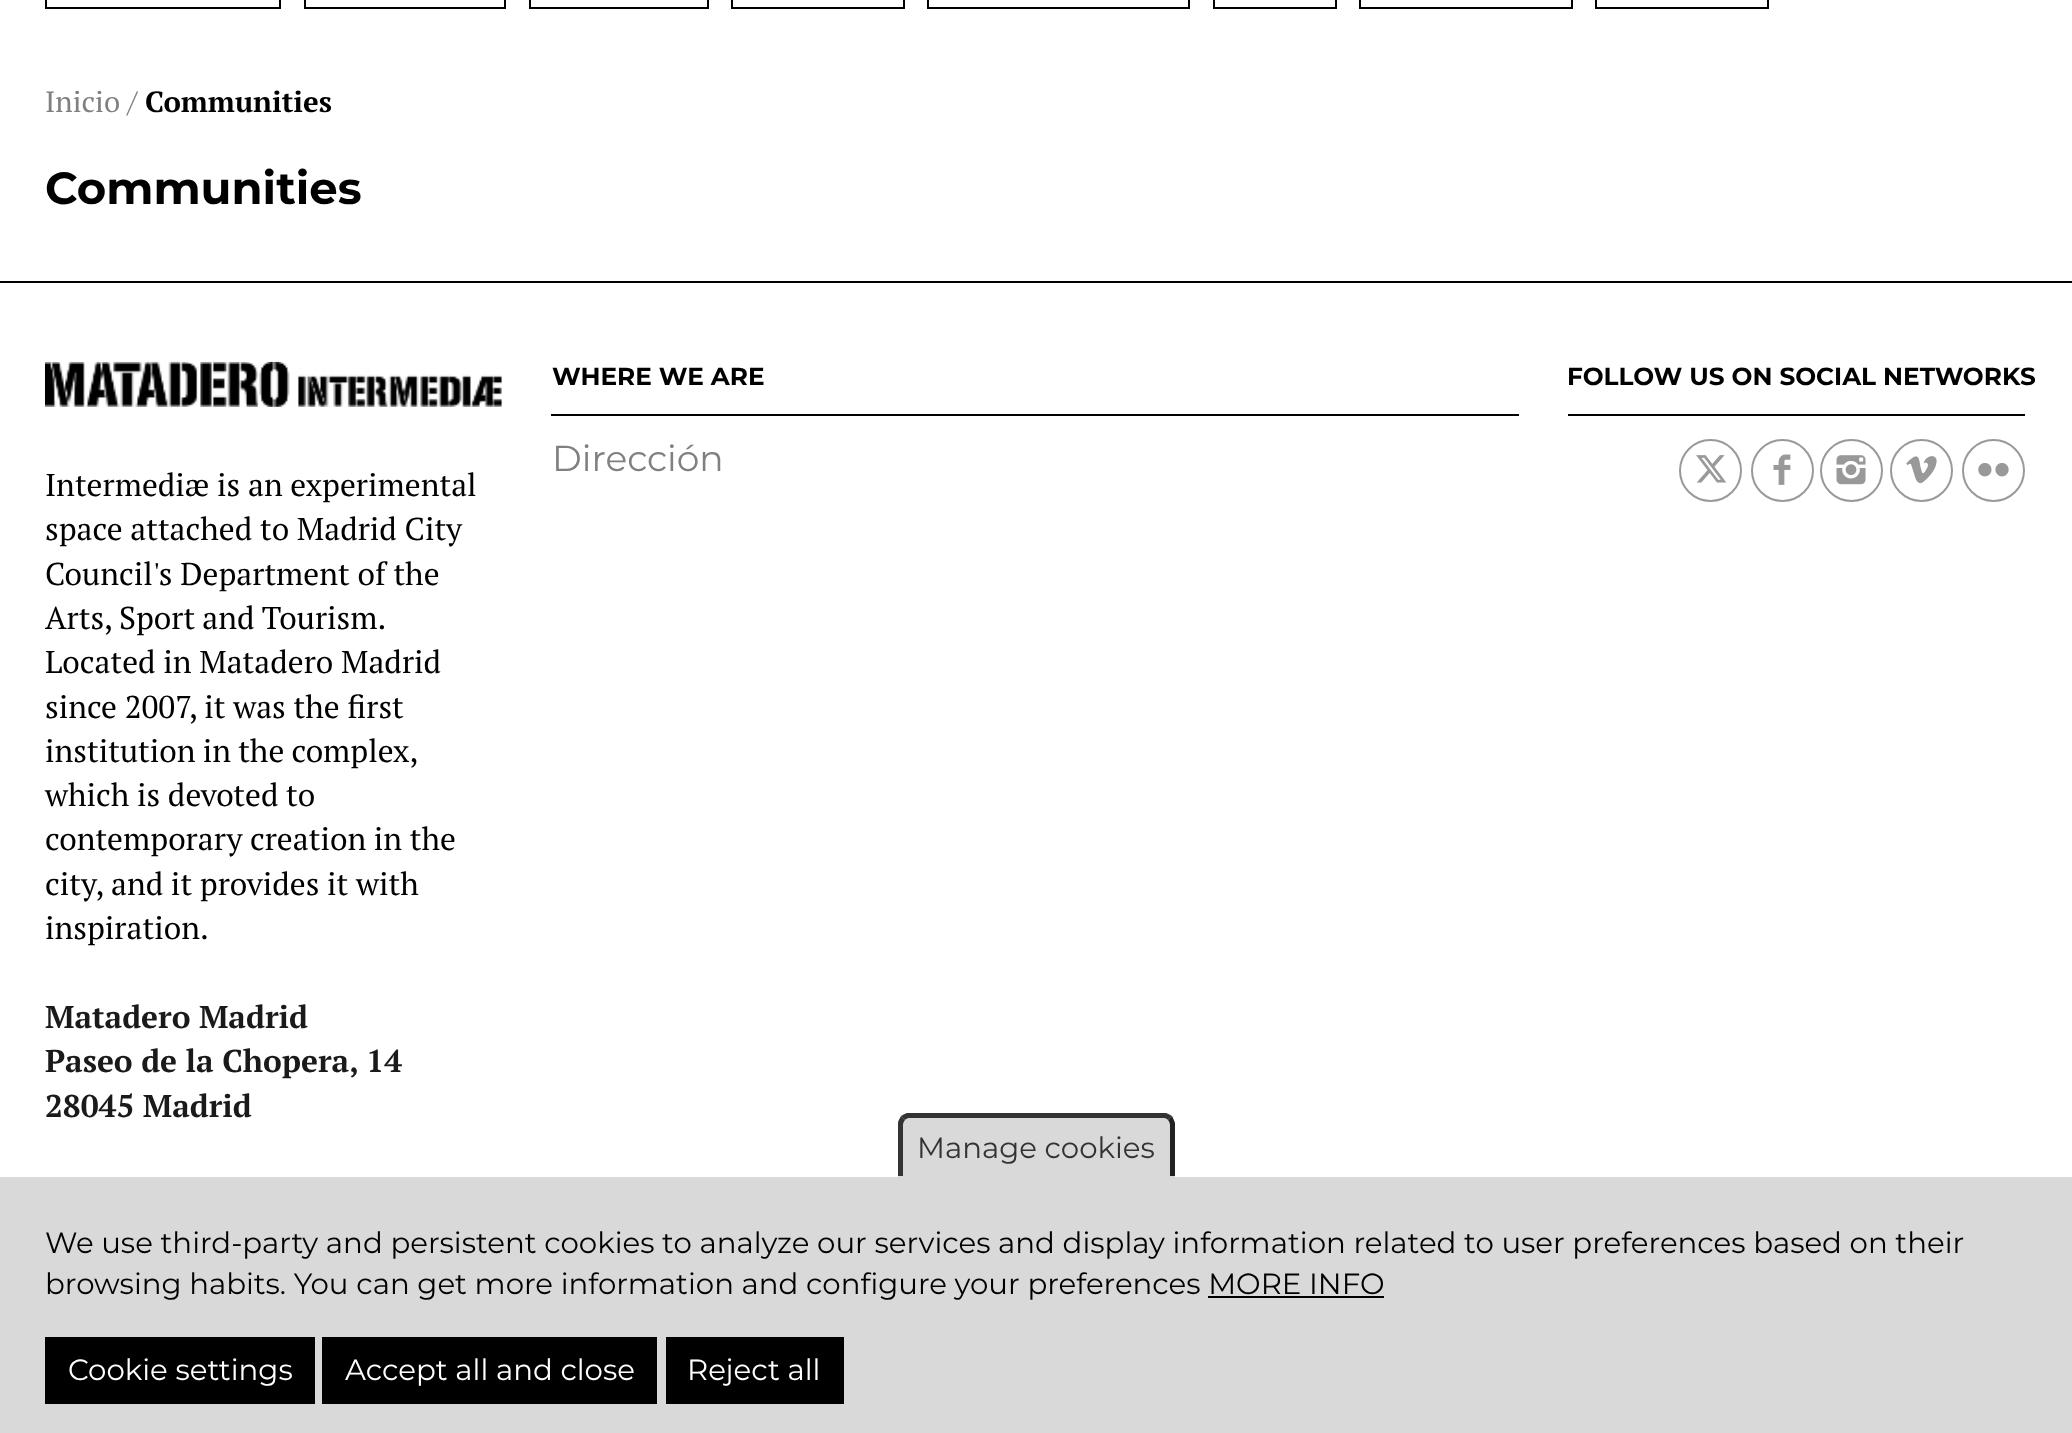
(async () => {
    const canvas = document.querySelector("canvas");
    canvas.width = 2072;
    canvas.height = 1433;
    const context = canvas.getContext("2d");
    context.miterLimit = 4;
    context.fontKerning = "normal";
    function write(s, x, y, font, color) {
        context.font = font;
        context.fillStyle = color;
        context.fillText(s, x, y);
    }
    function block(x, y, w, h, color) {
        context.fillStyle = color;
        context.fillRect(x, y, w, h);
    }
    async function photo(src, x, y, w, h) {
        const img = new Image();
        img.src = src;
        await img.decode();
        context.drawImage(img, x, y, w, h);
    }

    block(0, 0, 2072, 1433, "rgb(255, 255, 255)");
    context.strokeStyle = "rgb(0, 0, 0)";
    context.lineWidth = 2;
    context.strokeRect(46, -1, 234, 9);
    context.strokeRect(305, -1, 200, 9);
    context.strokeRect(530, -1, 178, 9);
    context.strokeRect(732, -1, 172, 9);
    context.strokeRect(928, -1, 261, 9);
    context.strokeRect(1214, -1, 122, 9);
    context.strokeRect(1360, -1, 212, 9);
    context.strokeRect(1596, -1, 172, 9);
    write("Inicio /", 45, 112, "29.25px PT Serif", "rgb(128, 128, 128)");
    write("Communities", 145, 112, "bold 29.25px PT Serif", "rgb(0, 0, 0)");
    write("Communities", 45, 204, "bold 45px Montserrat", "rgb(0, 0, 0)");
    block(0, 281, 2072, 2, "rgb(0, 0, 0)");
    block(551, 414, 968, 2, "rgb(0, 0, 0)");
    write("WHERE WE ARE", 552, 385, "bold 24.75px Montserrat", "rgb(0, 0, 0)");
    write("Dirección", 552, 471, "36px Montserrat", "rgb(128, 128, 128)");
    block(1568, 414, 457, 2, "rgb(0, 0, 0)");
    write("FOLLOW US ON SOCIAL NETWORKS", 1567, 385, "bold 24.75px Montserrat", "rgb(0, 0, 0)");
    context.beginPath();
    context.arc(1710.5, 470.5, 30.5, 0, Math.PI * 2);
    context.strokeStyle = "rgb(153, 153, 153)";
    context.stroke();
    await photo("media/1.png", 1696, 455, 31, 28);
    context.beginPath();
    context.arc(1782.5, 470.5, 30.5, 0, Math.PI * 2);
    context.stroke();
    await photo("media/2.png", 1773, 454, 18, 31);
    context.beginPath();
    context.arc(1851.5, 470.5, 30.5, 0, Math.PI * 2);
    context.stroke();
    await photo("media/3.png", 1836, 455, 30, 30);
    context.beginPath();
    context.arc(1921.5, 470.5, 30.5, 0, Math.PI * 2);
    context.stroke();
    await photo("media/4.png", 1906, 456, 31, 28);
    context.beginPath();
    context.arc(1993.5, 470.5, 30.5, 0, Math.PI * 2);
    context.stroke();
    await photo("media/5.png", 1978, 463, 31, 14);
    await photo("media/6.png", 45, 361, 457, 46);
    write("Intermediæ is an experimental", 45, 496, "31.6px PT Serif", "rgb(0, 0, 0)");
    write("space attached to Madrid City", 45, 540, "31.6px PT Serif", "rgb(0, 0, 0)");
    write("Council's Department of the", 45, 585, "31.6px PT Serif", "rgb(0, 0, 0)");
    context.wordSpacing = "-0.5px";
    write("Arts, Sport and Tourism.", 45, 629, "31.6px PT Serif", "rgb(0, 0, 0)");
    context.wordSpacing = "0px";
    write("Located in Matadero Madrid", 45, 673, "31.6px PT Serif", "rgb(0, 0, 0)");
    write("since 2007, it was the first", 45, 718, "31.6px PT Serif", "rgb(0, 0, 0)");
    context.wordSpacing = "-0.5px";
    write("institution in the complex,", 45, 762, "31.6px PT Serif", "rgb(0, 0, 0)");
    context.wordSpacing = "0px";
    write("which is devoted to", 45, 806, "31.6px PT Serif", "rgb(0, 0, 0)");
    write("contemporary creation in the", 45, 850, "31.6px PT Serif", "rgb(0, 0, 0)");
    write("city, and it provides it with", 45, 895, "31.6px PT Serif", "rgb(0, 0, 0)");
    write("inspiration.", 45, 939, "31.6px PT Serif", "rgb(0, 0, 0)");
    write("Matadero Madrid", 45, 1028, "bold 31.6px PT Serif", "rgb(26, 26, 26)");
    write("Paseo de la Chopera, 14", 45, 1072, "bold 31.6px PT Serif", "rgb(26, 26, 26)");
    write("28045 Madrid", 45, 1117, "bold 31.6px PT Serif", "rgb(26, 26, 26)");
    block(0, 1177, 2072, 256, "rgb(217, 217, 217)");
    context.beginPath();
    context.roundRect(898, 1114, 277, 63, [11, 11, 0, 0]);
    context.fill();
    context.fillStyle = "rgb(51, 51, 51)";
    context.beginPath();
    context.moveTo(909, 1118);
    context.bezierCurveTo(907, 1118, 906, 1119, 905, 1120);
    context.lineTo(901, 1116);
    context.bezierCurveTo(903, 1115, 904, 1114, 907, 1113);
    context.lineTo(1166, 1113);
    context.bezierCurveTo(1169, 1114, 1170, 1115, 1172, 1116);
    context.lineTo(1168, 1120);
    context.bezierCurveTo(1167, 1119, 1166, 1118, 1164, 1118);
    context.closePath();
    context.fill();
    context.fillStyle = "rgb(34, 34, 34)";
    context.beginPath();
    context.moveTo(1175, 1123);
    context.lineTo(1175, 1176);
    context.lineTo(1170, 1176);
    context.lineTo(1170, 1125);
    context.bezierCurveTo(1170, 1123, 1169, 1121, 1168, 1120);
    context.lineTo(1172, 1116);
    context.bezierCurveTo(1173, 1118, 1174, 1120, 1175, 1123);
    context.closePath();
    context.fill();
    context.fillStyle = "rgb(51, 51, 51)";
    context.beginPath();
    context.moveTo(898, 1123);
    context.bezierCurveTo(898, 1121, 900, 1118, 901, 1116);
    context.lineTo(905, 1120);
    context.bezierCurveTo(904, 1121, 903, 1123, 903, 1125);
    context.lineTo(903, 1176);
    context.lineTo(898, 1176);
    context.closePath();
    context.fill();
    write("Manage cookies", 917, 1158, "29.25px Montserrat", "rgb(51, 51, 51)");
    write("We use third-party and persistent cookies to analyze our services and display information related to user preferences based on their", 45, 1253, "29.25px Montserrat", "rgb(0, 0, 0)");
    write("browsing habits. You can get more information and configure your preferences MORE INFO", 45, 1294, "29.25px Montserrat", "rgb(0, 0, 0)");
    block(1208, 1296, 176, 2, "rgb(0, 0, 0)");
    block(45, 1337, 270, 67, "rgb(0, 0, 0)");
    write("Cookie settings", 68, 1380, "29.25px Montserrat", "rgb(255, 255, 255)");
    block(322, 1337, 335, 67, "rgb(0, 0, 0)");
    write("Accept all and close", 345, 1380, "29.25px Montserrat", "rgb(255, 255, 255)");
    block(666, 1337, 178, 67, "rgb(0, 0, 0)");
    write("Reject all", 687, 1380, "29.25px Montserrat", "rgb(255, 255, 255)");
})();
